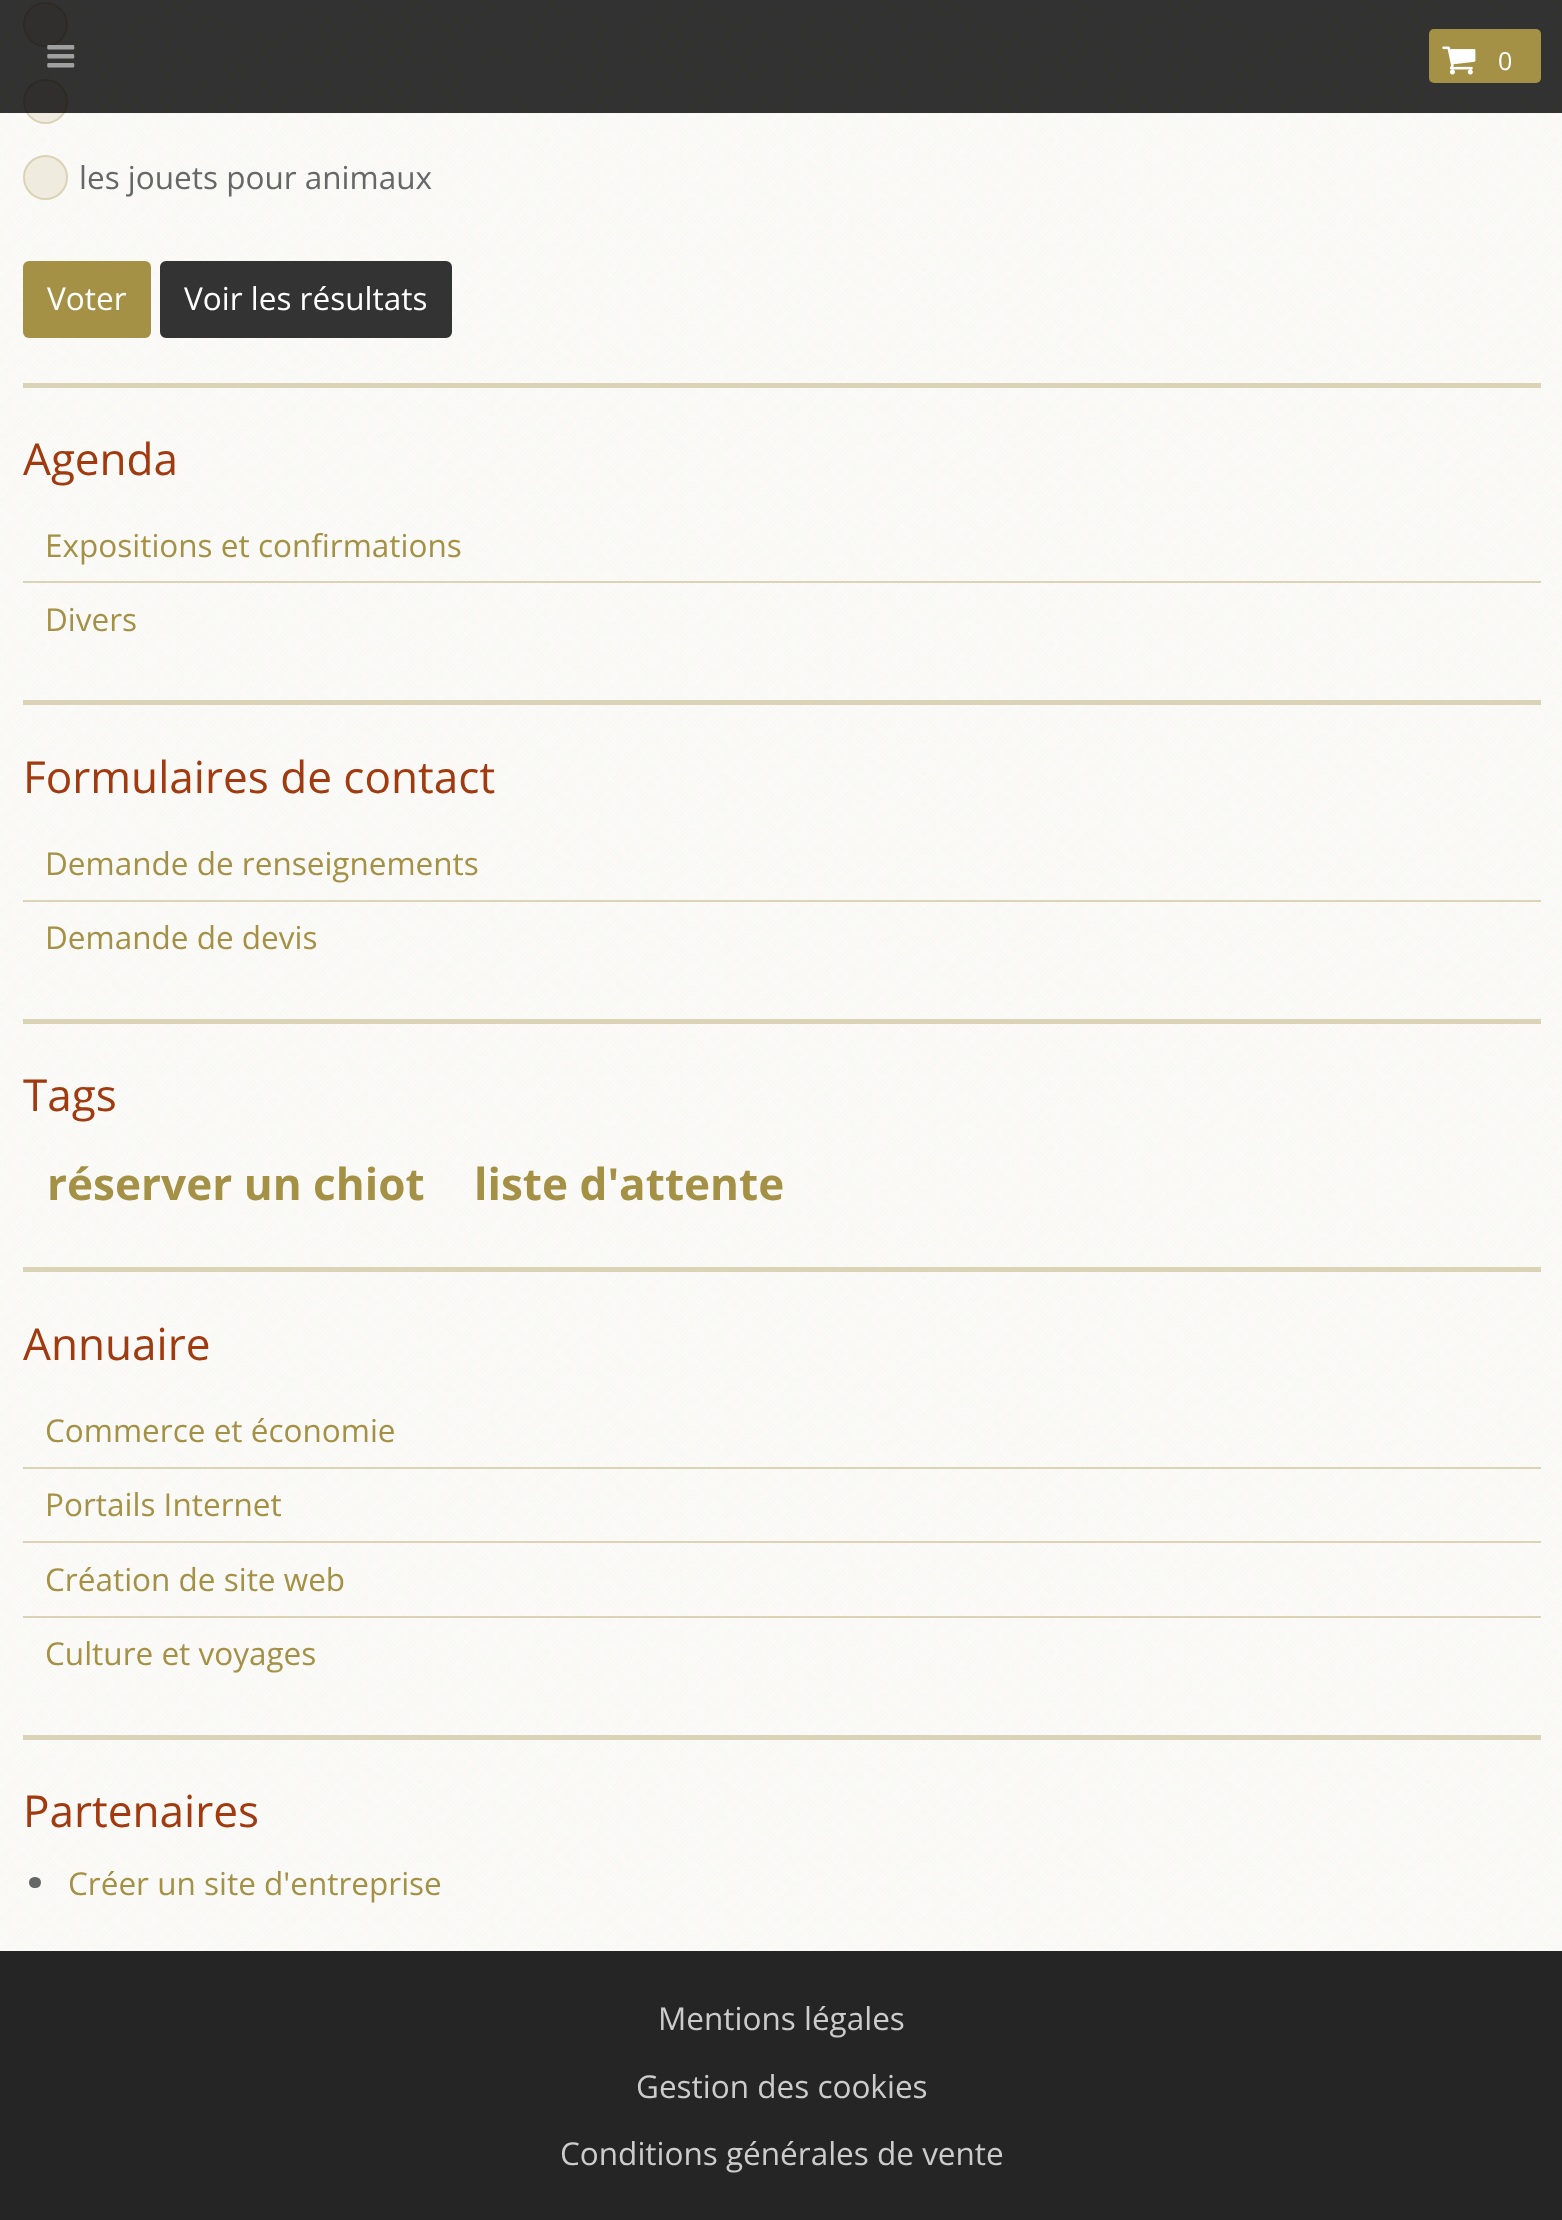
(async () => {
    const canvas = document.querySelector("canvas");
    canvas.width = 1562;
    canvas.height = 2220;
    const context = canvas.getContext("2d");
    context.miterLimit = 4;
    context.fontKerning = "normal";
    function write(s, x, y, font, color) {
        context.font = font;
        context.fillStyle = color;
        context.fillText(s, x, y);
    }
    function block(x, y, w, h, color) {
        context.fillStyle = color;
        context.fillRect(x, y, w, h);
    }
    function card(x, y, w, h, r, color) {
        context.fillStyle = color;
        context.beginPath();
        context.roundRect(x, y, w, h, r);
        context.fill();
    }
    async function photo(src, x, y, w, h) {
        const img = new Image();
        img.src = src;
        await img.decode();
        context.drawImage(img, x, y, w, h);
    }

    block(0, 0, 1562, 2220, "rgb(239, 236, 223)");
    await photo("media/1.png", 0, 0, 1562, 1951);
    block(0, 0, 1562, 1951, "rgba(255, 255, 255, 0.8)");
    context.fillStyle = "rgb(239, 236, 223)";
    context.beginPath();
    context.arc(45.5, 24.5, 21.5, 0, Math.PI * 2);
    context.fill();
    context.strokeStyle = "rgb(219, 211, 181)";
    context.lineWidth = 2;
    context.stroke();
    context.beginPath();
    context.arc(45.5, 101.5, 21.5, 0, Math.PI * 2);
    context.fill();
    context.stroke();
    block(0, 0, 1562, 113, "rgba(0, 0, 0, 0.8)");
    await photo("media/2.png", 47, 45, 28, 23);
    card(1429, 29, 112, 54, 5, "rgb(164, 145, 69)");
    await photo("media/3.png", 1442, 46, 34, 29);
    write("0", 1498, 70, "25px Open Sans", "rgb(255, 255, 255)");
    block(23, 383, 1518, 5, "rgb(219, 211, 181)");
    context.fillStyle = "rgb(239, 236, 223)";
    context.beginPath();
    context.arc(45.5, 177.5, 21.5, 0, Math.PI * 2);
    context.fill();
    context.stroke();
    write("les jouets pour animaux", 79, 189, "31.5px Open Sans", "rgb(103, 103, 103)");
    card(23, 261, 128, 77, 6, "rgb(164, 145, 69)");
    write("Voter", 47, 310, "31.5px Open Sans", "rgb(255, 255, 255)");
    context.fillStyle = "rgb(51, 51, 51)";
    context.beginPath();
    context.roundRect(161, 262, 290, 75, 5);
    context.fill();
    context.strokeStyle = "rgb(51, 51, 51)";
    context.stroke();
    write("Voir les résultats", 184, 310, "31.5px Open Sans", "rgb(255, 255, 255)");
    block(23, 700, 1518, 5, "rgb(219, 211, 181)");
    write("Agenda", 23, 475, "44.1px Open Sans", "rgb(161, 58, 15)");
    block(23, 581, 1518, 2, "rgb(219, 211, 181)");
    write("Expositions et confirmations", 45, 557, "31.5px Open Sans", "rgb(164, 145, 69)");
    write("Divers", 45, 631, "31.5px Open Sans", "rgb(164, 145, 69)");
    block(23, 1019, 1518, 5, "rgb(219, 211, 181)");
    write("Formulaires de contact", 23, 793, "44.1px Open Sans", "rgb(161, 58, 15)");
    block(23, 900, 1518, 2, "rgb(219, 211, 181)");
    write("Demande de renseignements", 45, 875, "31.5px Open Sans", "rgb(164, 145, 69)");
    write("Demande de devis", 45, 949, "31.5px Open Sans", "rgb(164, 145, 69)");
    block(23, 1267, 1518, 5, "rgb(219, 211, 181)");
    write("Tags", 23, 1111, "44.1px Open Sans", "rgb(161, 58, 15)");
    write("réserver un chiot", 47, 1200, "bold 44.1px Open Sans", "rgb(164, 145, 69)");
    write("liste d'attente", 474, 1200, "bold 44.1px Open Sans", "rgb(164, 145, 69)");
    block(23, 1735, 1518, 5, "rgb(219, 211, 181)");
    write("Annuaire", 23, 1360, "44.1px Open Sans", "rgb(161, 58, 15)");
    block(23, 1467, 1518, 2, "rgb(219, 211, 181)");
    write("Commerce et économie", 45, 1442, "31.5px Open Sans", "rgb(164, 145, 69)");
    block(23, 1541, 1518, 2, "rgb(219, 211, 181)");
    write("Portails Internet", 45, 1516, "31.5px Open Sans", "rgb(164, 145, 69)");
    block(23, 1616, 1518, 2, "rgb(219, 211, 181)");
    write("Création de site web", 45, 1591, "31.5px Open Sans", "rgb(164, 145, 69)");
    write("Culture et voyages", 45, 1665, "31.5px Open Sans", "rgb(164, 145, 69)");
    write("Partenaires", 23, 1827, "44.1px Open Sans", "rgb(161, 58, 15)");
    card(29, 1877, 12, 11, 5.5, "rgb(103, 103, 103)");
    write("Créer un site d'entreprise", 68, 1895, "31.5px Open Sans", "rgb(164, 145, 69)");
    block(0, 1951, 1562, 269, "rgb(37, 37, 37)");
    write("Mentions légales", 658, 2030, "31.5px Open Sans", "rgb(204, 204, 204)");
    write("Gestion des cookies", 636, 2098, "31.5px Open Sans", "rgb(204, 204, 204)");
    write("Conditions générales de vente", 560, 2165, "31.5px Open Sans", "rgb(204, 204, 204)");
})();
